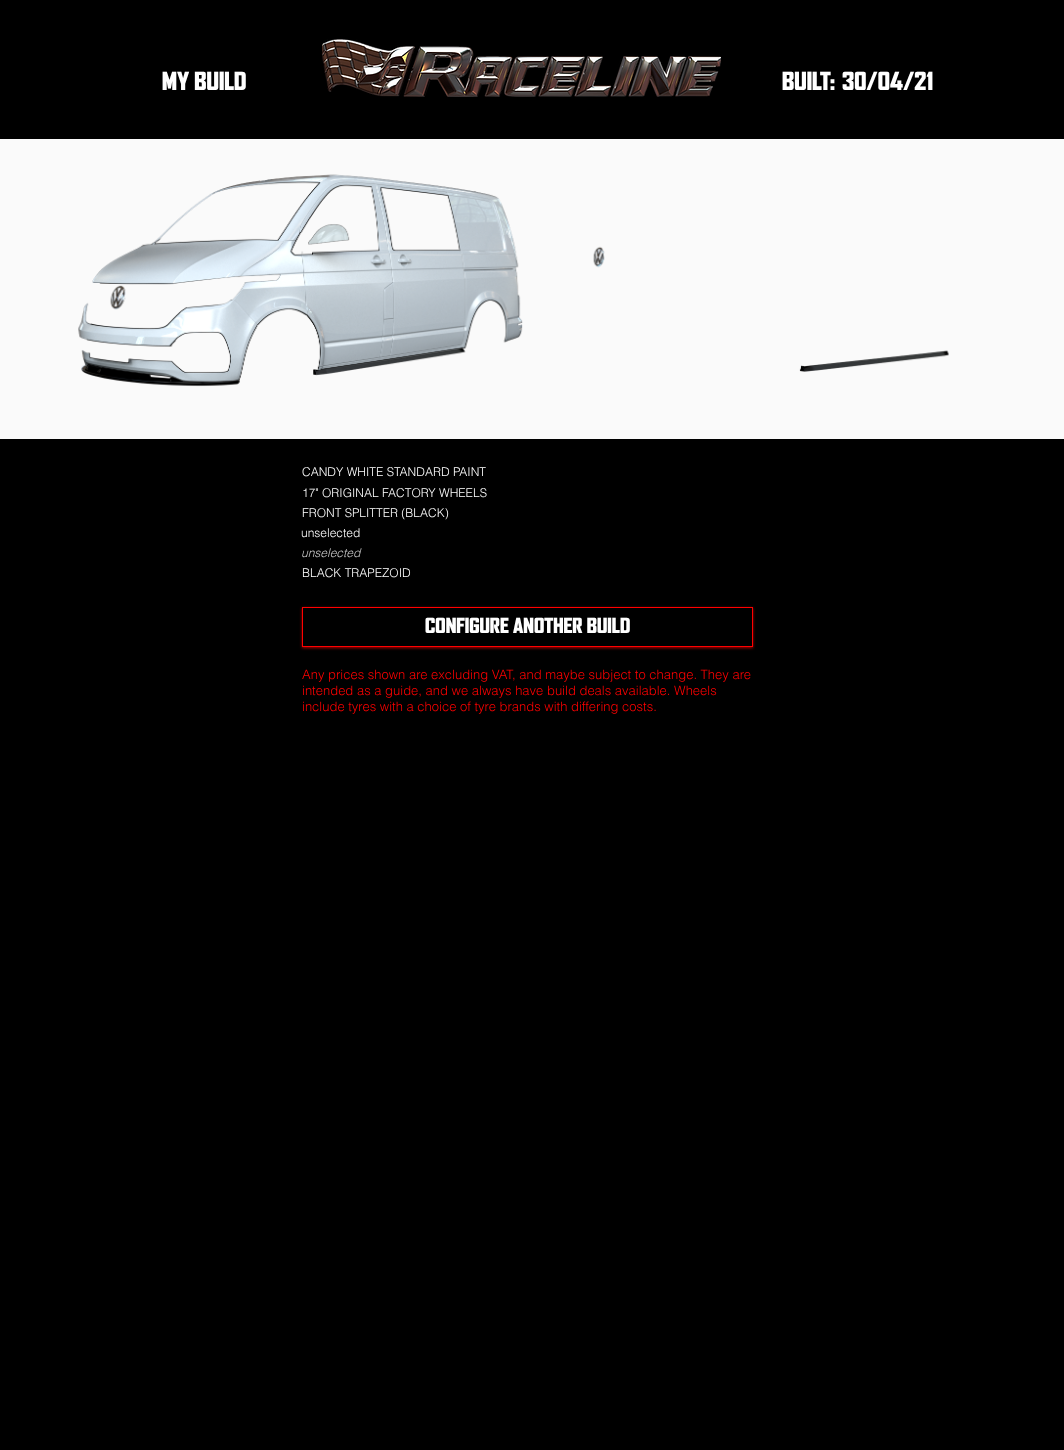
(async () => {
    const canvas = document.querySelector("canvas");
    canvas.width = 1064;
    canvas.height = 1450;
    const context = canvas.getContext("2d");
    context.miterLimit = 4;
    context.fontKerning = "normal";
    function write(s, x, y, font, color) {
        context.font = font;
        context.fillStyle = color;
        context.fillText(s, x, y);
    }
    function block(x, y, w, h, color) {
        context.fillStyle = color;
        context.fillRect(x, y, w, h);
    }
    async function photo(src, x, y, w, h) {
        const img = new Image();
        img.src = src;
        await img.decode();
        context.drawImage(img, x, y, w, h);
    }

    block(0, 0, 1064, 1450, "rgb(0, 0, 0)");
    write("MY BUILD", 162, 90, "24px 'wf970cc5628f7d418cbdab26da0'", "rgb(255, 255, 255)");
    await photo("media/1.png", 322, 39, 399, 58);
    write("BUILT:", 782, 90, "24px 'wf970cc5628f7d418cbdab26da0'", "rgb(255, 255, 255)");
    write("30/04/21", 842, 90, "24px 'wf970cc5628f7d418cbdab26da0'", "rgb(255, 255, 255)");
    block(0, 139, 1064, 300, "rgb(250, 250, 250)");
    await photo("media/2.png", 78, 174, 445, 209);
    await photo("media/3.png", 593, 246, 12, 22);
    await photo("media/4.png", 110, 285, 16, 25);
    await photo("media/5.png", 81, 364, 159, 23);
    await photo("media/6.png", 313, 347, 153, 29);
    await photo("media/7.png", 799, 350, 150, 22);
    write("CANDY WHITE STANDARD PAINT", 302, 476, "300 12px helvetica", "rgb(255, 255, 255)");
    write("17\" ORIGINAL FACTORY WHEELS", 302, 497, "300 12px helvetica", "rgb(255, 255, 255)");
    write("FRONT SPLITTER (BLACK)", 302, 517, "300 12px helvetica", "rgb(255, 255, 255)");
    write("unselected", 301, 537, "300 12px helvetica", "rgb(255, 255, 255)");
    write("unselected", 301, 557, "italic 300 12px helvetica", "rgb(199, 199, 199)");
    write("BLACK TRAPEZOID", 302, 577, "300 12px helvetica", "rgb(255, 255, 255)");
    context.save();
    context.beginPath();
    context.moveTo(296, 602);
    context.lineTo(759, 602);
    context.lineTo(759, 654);
    context.lineTo(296, 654);
    context.closePath();
    context.moveTo(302, 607);
    context.lineTo(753, 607);
    context.lineTo(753, 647);
    context.lineTo(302, 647);
    context.closePath();
    context.clip("evenodd");
    context.fillStyle = "rgba(255, 0, 0, 0.68)";
    context.filter = "blur(1.5px)";
    context.beginPath();
    context.rect(302, 608, 451, 40);
    context.fill();
    context.filter = "none";
    context.restore();
    context.strokeStyle = "rgb(255, 0, 0)";
    context.strokeRect(302.5, 607.5, 450, 39);
    write("CONFIGURE ANOTHER BUILD", 425, 633, "20px 'wf970cc5628f7d418cbdab26da0'", "rgb(255, 255, 255)");
    write("Any prices shown are excluding VAT, and maybe subject to change. They are", 302, 679, "300 13px helvetica", "rgb(255, 0, 0)");
    write("intended as a guide, and we always have build deals available. Wheels", 302, 695, "300 13px helvetica", "rgb(255, 0, 0)");
    write("include tyres with a choice of tyre brands with differing costs.", 302, 711, "300 13px helvetica", "rgb(255, 0, 0)");
})();
